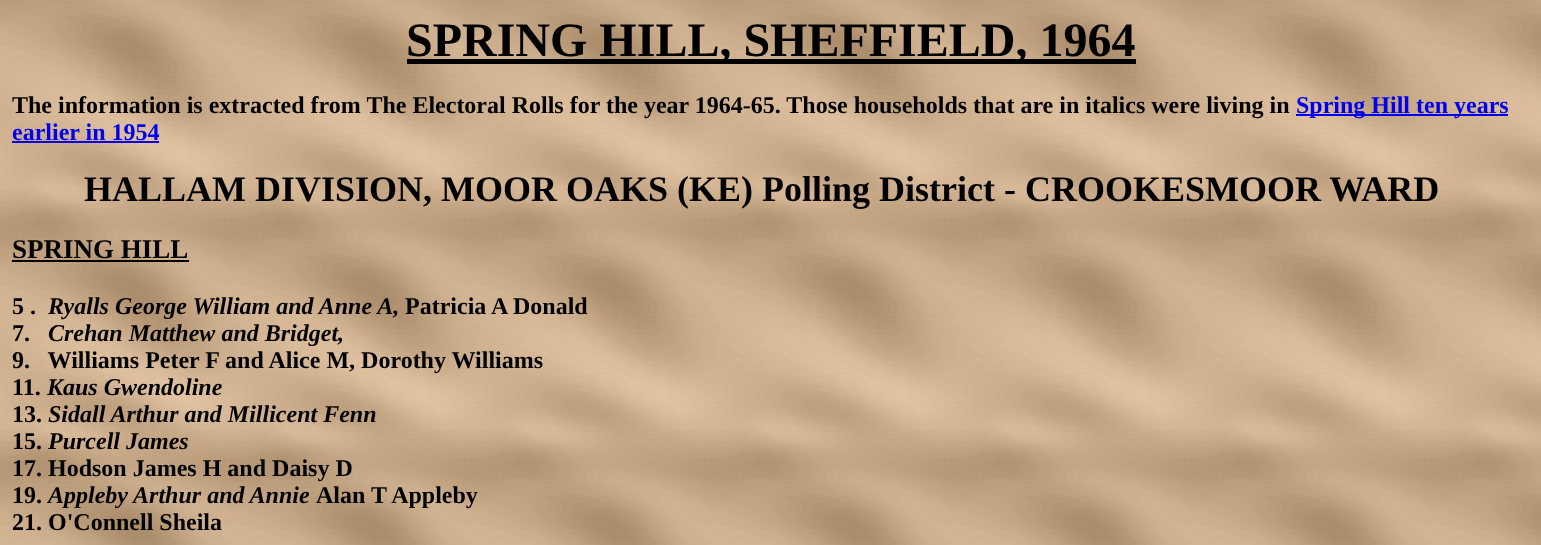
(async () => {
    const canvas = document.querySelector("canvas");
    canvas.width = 1541;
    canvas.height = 545;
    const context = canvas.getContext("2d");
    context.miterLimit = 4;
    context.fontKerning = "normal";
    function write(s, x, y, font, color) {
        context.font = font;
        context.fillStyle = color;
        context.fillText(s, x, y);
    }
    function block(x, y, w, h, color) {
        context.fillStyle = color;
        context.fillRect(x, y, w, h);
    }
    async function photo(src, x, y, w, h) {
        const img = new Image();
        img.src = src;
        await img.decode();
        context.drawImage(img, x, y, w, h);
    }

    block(0, 0, 1541, 545, "rgb(255, 255, 255)");
    await photo("media/1.png", 0, 0, 1541, 545);
    block(407, 59, 729, 5, "rgb(0, 0, 0)");
    write("SPRING HILL, SHEFFIELD, 1964", 406, 56, "bold 48px Liberation Serif", "rgb(0, 0, 0)");
    write("The information is extracted from The Electoral Rolls for the year 1964-65. Those households that are in italics were living in", 12, 113, "bold 24px Liberation Serif", "rgb(0, 0, 0)");
    block(1296, 114, 212, 2, "rgb(0, 0, 238)");
    write("Spring Hill ten years", 1296, 113, "bold 24px Liberation Serif", "rgb(0, 0, 238)");
    write("earlier in 1954", 12, 140, "bold 24px Liberation Serif", "rgb(0, 0, 238)");
    block(12, 141, 147, 2, "rgb(0, 0, 238)");
    write("HALLAM DIVISION, MOOR OAKS (KE) Polling District - CROOKESMOOR WARD", 84, 201, "bold 36px Liberation Serif", "rgb(0, 0, 0)");
    write("SPRING HILL", 12, 258, "bold 27px Liberation Serif", "rgb(0, 0, 0)");
    block(12, 260, 177, 2, "rgb(0, 0, 0)");
    write("5 .", 12, 314, "bold 24px Liberation Serif", "rgb(0, 0, 0)");
    write("Ryalls George William and Anne A,", 48, 314, "italic bold 24px Liberation Serif", "rgb(0, 0, 0)");
    write("Patricia A Donald", 405, 314, "bold 24px Liberation Serif", "rgb(0, 0, 0)");
    write("7.", 12, 341, "bold 24px Liberation Serif", "rgb(0, 0, 0)");
    write("Crehan Matthew and Bridget,", 48, 341, "italic bold 24px Liberation Serif", "rgb(0, 0, 0)");
    write("9.   Williams Peter F and Alice M, Dorothy Williams", 12, 368, "bold 24px Liberation Serif", "rgb(0, 0, 0)");
    write("11.", 12, 395, "bold 24px Liberation Serif", "rgb(0, 0, 0)");
    write("Kaus Gwendoline", 47, 395, "italic bold 24px Liberation Serif", "rgb(0, 0, 0)");
    write("13.", 12, 422, "bold 24px Liberation Serif", "rgb(0, 0, 0)");
    write("Sidall Arthur and Millicent Fenn", 48, 422, "italic bold 24px Liberation Serif", "rgb(0, 0, 0)");
    write("15.", 12, 449, "bold 24px Liberation Serif", "rgb(0, 0, 0)");
    write("Purcell James", 48, 449, "italic bold 24px Liberation Serif", "rgb(0, 0, 0)");
    write("17. Hodson James H and Daisy D", 12, 476, "bold 24px Liberation Serif", "rgb(0, 0, 0)");
    write("19.", 12, 503, "bold 24px Liberation Serif", "rgb(0, 0, 0)");
    write("Appleby Arthur and Annie", 48, 503, "italic bold 24px Liberation Serif", "rgb(0, 0, 0)");
    write("Alan T Appleby", 316, 503, "bold 24px Liberation Serif", "rgb(0, 0, 0)");
    write("21. O'Connell Sheila", 12, 530, "bold 24px Liberation Serif", "rgb(0, 0, 0)");
})();
